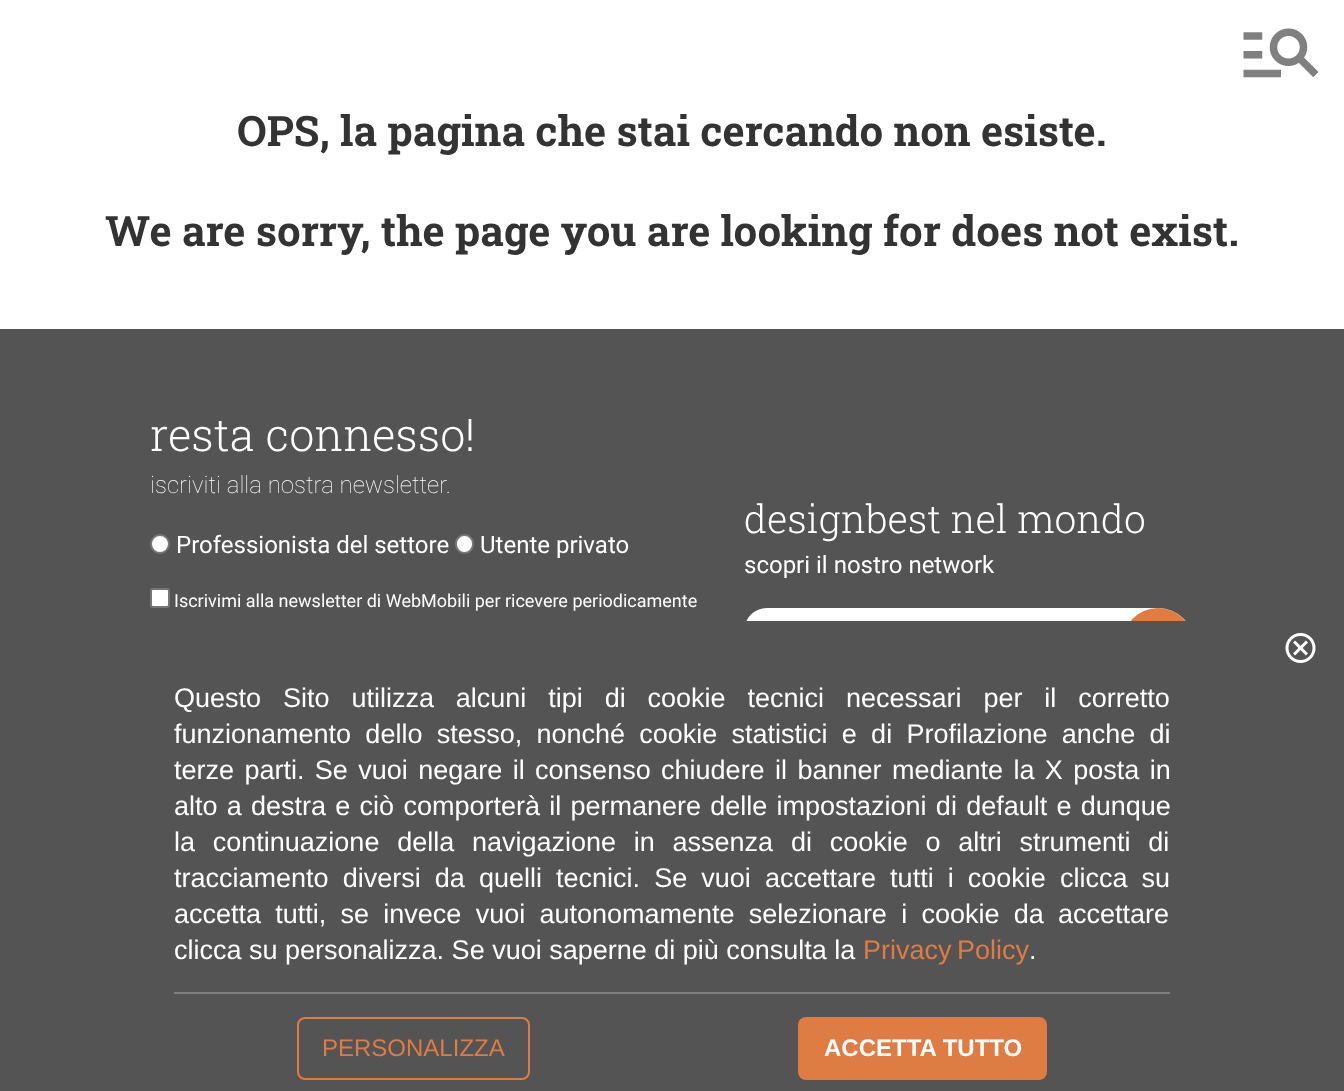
(async () => {
    const canvas = document.querySelector("canvas");
    canvas.width = 1344;
    canvas.height = 1091;
    const context = canvas.getContext("2d");
    context.miterLimit = 4;
    context.fontKerning = "normal";
    function write(s, x, y, font, color) {
        context.font = font;
        context.fillStyle = color;
        context.fillText(s, x, y);
    }
    function block(x, y, w, h, color) {
        context.fillStyle = color;
        context.fillRect(x, y, w, h);
    }
    function card(x, y, w, h, r, color) {
        context.fillStyle = color;
        context.beginPath();
        context.roundRect(x, y, w, h, r);
        context.fill();
    }
    async function photo(src, x, y, w, h) {
        const img = new Image();
        img.src = src;
        await img.decode();
        context.drawImage(img, x, y, w, h);
    }

    block(0, 0, 1344, 1091, "rgb(255, 255, 255)");
    await photo("media/1.png", 1243, 28, 76, 50);
    write("OPS, la pagina che stai cercando non esiste.", 237, 146, "bold 42px Roboto Slab", "rgb(51, 51, 51)");
    write("We are sorry, the page you are looking for does not exist.", 105, 246, "bold 42px Roboto Slab", "rgb(51, 51, 51)");
    block(0, 329, 1344, 292, "rgb(84, 84, 84)");
    write("resta connesso!", 150, 451, "300 45px Roboto Slab", "rgb(255, 255, 255)");
    write("iscriviti alla nostra newsletter.", 150, 493, "100 24px Roboto", "rgb(255, 255, 255)");
    context.beginPath();
    context.arc(160, 544, 9, 0, Math.PI * 2);
    context.fill();
    context.strokeStyle = "rgb(118, 118, 118)";
    context.lineWidth = 2;
    context.stroke();
    write("Professionista del settore", 176, 553, "24px Roboto", "rgb(255, 255, 255)");
    context.beginPath();
    context.roundRect(456, 535, 17, 18, 8.5);
    context.fill();
    context.stroke();
    write("Utente privato", 480, 553, "24px Roboto", "rgb(255, 255, 255)");
    context.beginPath();
    context.roundRect(151, 589, 18, 18, 2);
    context.fill();
    context.stroke();
    write("Iscrivimi alla newsletter di WebMobili per ricevere periodicamente", 174, 607, "18px Roboto", "rgb(255, 255, 255)");
    write("designbest nel mondo", 744, 533, "300 39px Roboto Slab", "rgb(255, 255, 255)");
    write("scopri il nostro network", 744, 573, "24px Roboto", "rgb(255, 255, 255)");
    context.beginPath();
    context.roundRect(744, 608, 450, 72, [23, 36, 36, 23]);
    context.fill();
    context.fillStyle = "rgb(223, 124, 66)";
    context.beginPath();
    context.arc(1158, 643.5, 35.5, 0, Math.PI * 2);
    context.fill();
    block(0, 621, 1344, 470, "rgb(84, 84, 84)");
    await photo("media/2.png", 1285, 633, 31, 30);
    context.wordSpacing = "14.4px";
    write("Questo Sito utilizza alcuni tipi di cookie tecnici necessari per il corretto", 174, 707, "27px Liberation Sans", "rgb(255, 255, 255)");
    context.wordSpacing = "6.75px";
    write("funzionamento dello stesso, nonché cookie statistici e di Profilazione anche di", 174, 743, "27px Liberation Sans", "rgb(255, 255, 255)");
    context.wordSpacing = "2.9px";
    write("terze parti. Se vuoi negare il consenso chiudere il banner mediante la X posta in", 174, 779, "27px Liberation Sans", "rgb(255, 255, 255)");
    context.wordSpacing = "1.75px";
    write("alto a destra e ciò comporterà il permanere delle impostazioni di default e dunque", 174, 815, "27px Liberation Sans", "rgb(255, 255, 255)");
    context.wordSpacing = "10.25px";
    write("la continuazione della navigazione in assenza di cookie o altri strumenti di", 174, 851, "27px Liberation Sans", "rgb(255, 255, 255)");
    context.wordSpacing = "6.6px";
    write("tracciamento diversi da quelli tecnici. Se vuoi accettare tutti i cookie clicca su", 174, 887, "27px Liberation Sans", "rgb(255, 255, 255)");
    context.wordSpacing = "6.75px";
    write("accetta tutti, se invece vuoi autonomamente selezionare i cookie da accettare", 174, 923, "27px Liberation Sans", "rgb(255, 255, 255)");
    context.wordSpacing = "0px";
    write("clicca su personalizza. Se vuoi saperne di più consulta la", 174, 959, "27px Liberation Sans", "rgb(255, 255, 255)");
    context.wordSpacing = "-2px";
    write("Privacy Policy", 863, 959, "27px Liberation Sans", "rgb(222, 124, 67)");
    context.wordSpacing = "0px";
    write(".", 1029, 959, "27px Liberation Sans", "rgb(255, 255, 255)");
    block(174, 992, 996, 2, "rgb(127, 127, 127)");
    context.beginPath();
    context.roundRect(298, 1018, 231, 61, 7);
    context.strokeStyle = "rgb(222, 124, 67)";
    context.stroke();
    write("PERSONALIZZA", 322, 1056, "24px Liberation Sans", "rgb(222, 124, 67)");
    card(798, 1017, 249, 63, 8, "rgb(222, 124, 67)");
    write("ACCETTA TUTTO", 824, 1056, "bold 24px Liberation Sans", "rgb(255, 255, 255)");
})();
